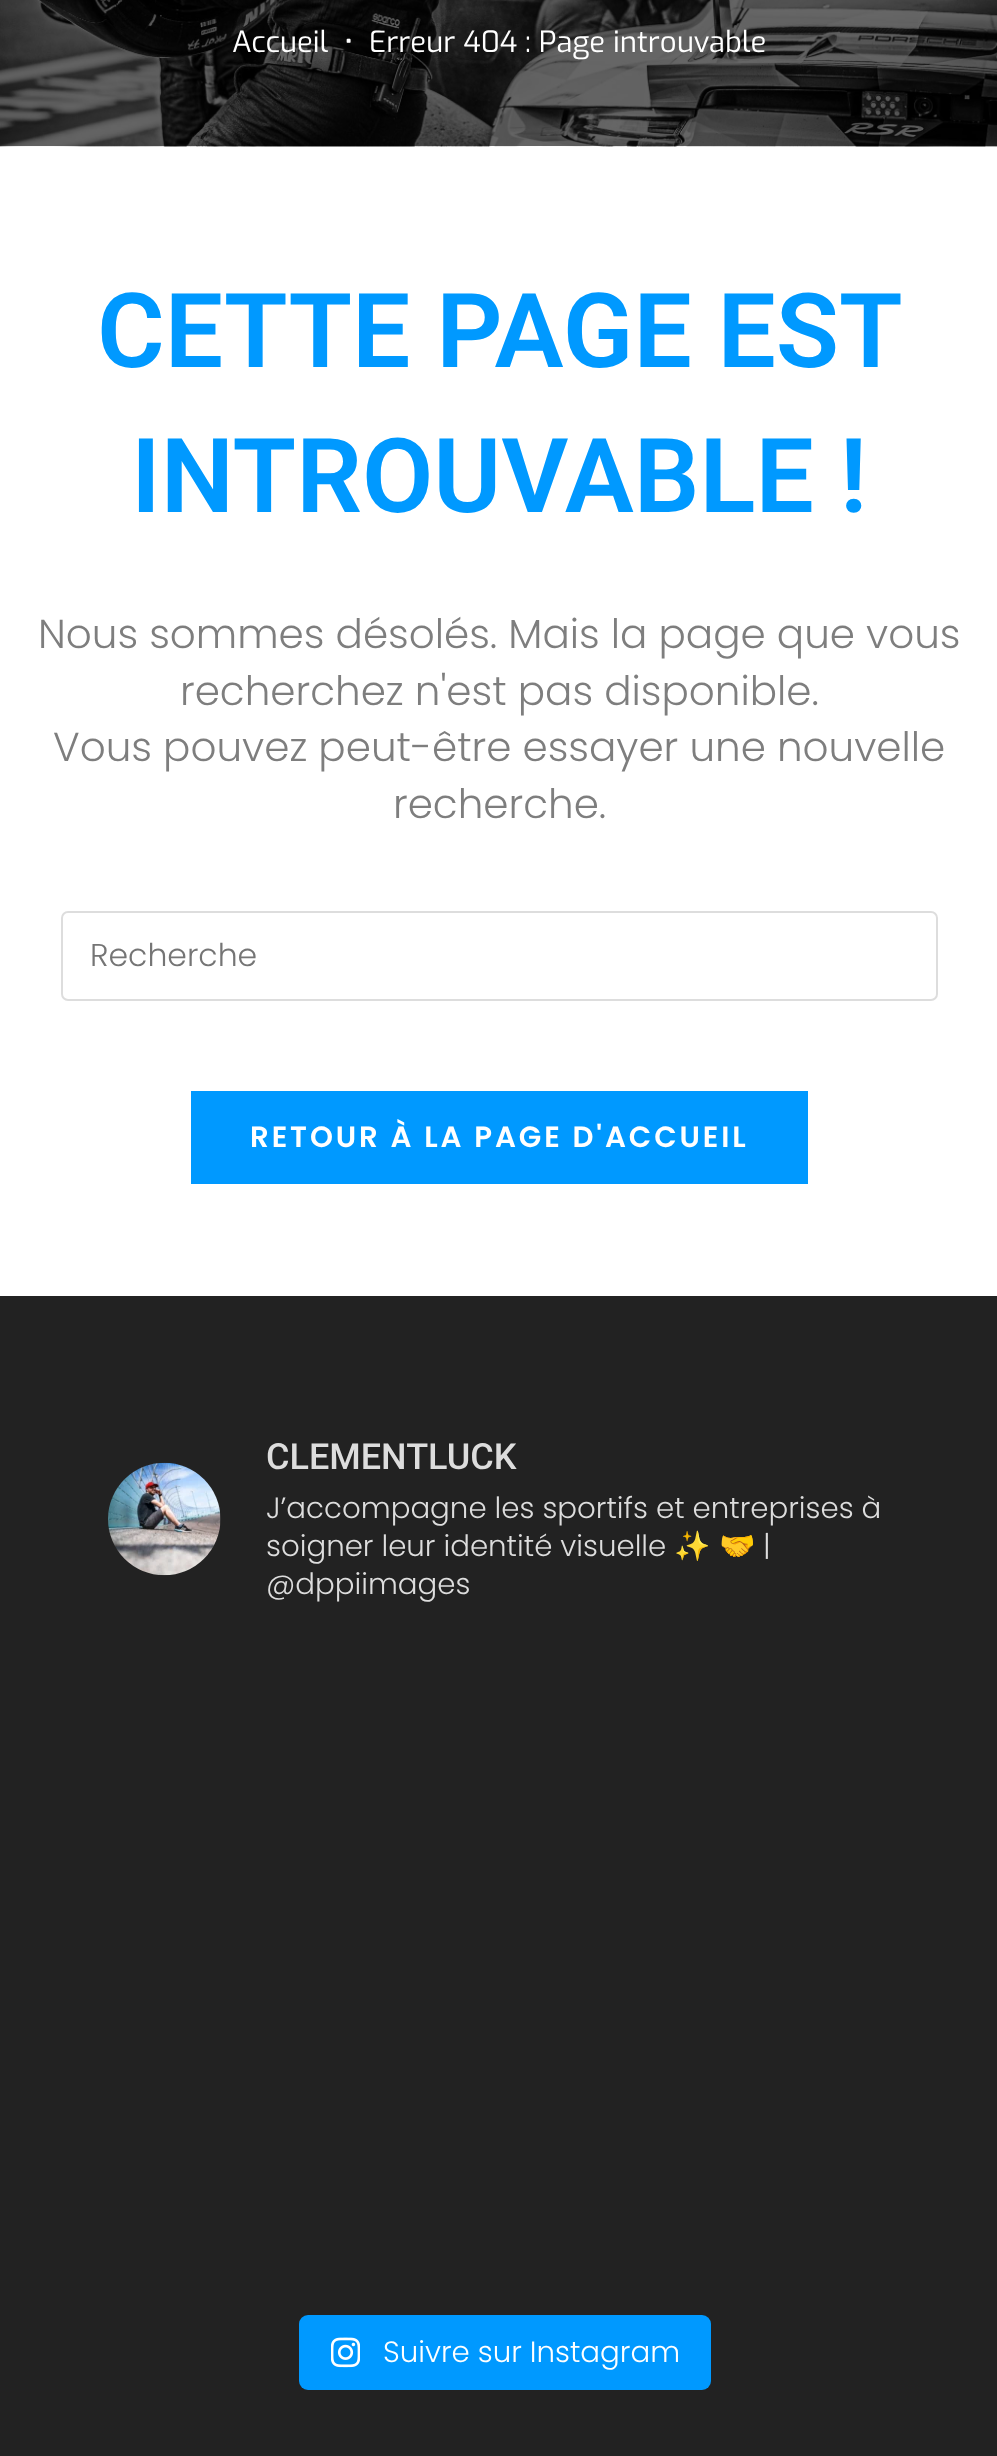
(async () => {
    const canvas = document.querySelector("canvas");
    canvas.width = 997;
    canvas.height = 2456;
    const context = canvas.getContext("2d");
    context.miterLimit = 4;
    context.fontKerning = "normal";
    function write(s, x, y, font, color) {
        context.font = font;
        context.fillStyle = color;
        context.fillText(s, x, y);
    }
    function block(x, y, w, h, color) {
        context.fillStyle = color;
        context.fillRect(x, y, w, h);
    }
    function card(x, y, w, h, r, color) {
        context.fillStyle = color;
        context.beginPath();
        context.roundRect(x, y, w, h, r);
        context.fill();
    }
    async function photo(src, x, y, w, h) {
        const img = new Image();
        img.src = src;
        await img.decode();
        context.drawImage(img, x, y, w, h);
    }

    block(0, 0, 997, 2456, "rgb(255, 255, 255)");
    await photo("media/1.png", 0, 0, 997, 147);
    write("Accueil", 232, 52, "29.25px Exo", "rgb(255, 255, 255)");
    write("•", 344, 52, "29.25px Exo", "rgb(255, 255, 255)");
    write("Erreur 404 : Page introuvable", 369, 52, "29.25px Exo", "rgb(255, 255, 255)");
    write("CETTE PAGE EST", 97, 367, "600 103.5px Roboto", "rgb(0, 153, 255)");
    write("INTROUVABLE !", 131, 512, "600 103.5px Roboto", "rgb(0, 153, 255)");
    write("Nous sommes désolés. Mais la page que vous", 38, 648, "300 40.5px Poppins", "rgb(126, 126, 126)");
    write("recherchez n'est pas disponible.", 180, 705, "300 40.5px Poppins", "rgb(126, 126, 126)");
    write("Vous pouvez peut-être essayer une nouvelle", 53, 761, "300 40.5px Poppins", "rgb(126, 126, 126)");
    write("recherche.", 393, 818, "300 40.5px Poppins", "rgb(126, 126, 126)");
    context.beginPath();
    context.roundRect(62, 912, 875, 88, 6);
    context.strokeStyle = "rgb(221, 221, 221)";
    context.lineWidth = 2;
    context.stroke();
    write("Recherche", 90, 966, "300 31.5px Poppins", "rgb(117, 117, 117)");
    block(191, 1091, 617, 93, "rgb(0, 153, 255)");
    context.letterSpacing = "2.9px";
    write("RETOUR À LA PAGE D'ACCUEIL", 250, 1147, "600 29.25px Poppins", "rgb(255, 255, 255)");
    block(0, 1296, 997, 1160, "rgb(34, 34, 34)");
    await photo("media/2.png", 108, 1462, 113, 114);
    context.letterSpacing = "0px";
    write("CLEMENTLUCK", 266, 1469, "500 36px Roboto", "rgb(221, 221, 221)");
    write("J’accompagne les sportifs et entreprises à", 266, 1518, "300 29.25px Poppins", "rgb(221, 221, 221)");
    write("soigner leur identité visuelle", 266, 1556, "300 29.25px Poppins", "rgb(221, 221, 221)");
    write("✨", 674, 1556, "29.25px Noto Color Emoji", "rgb(221, 221, 221)");
    write("🤝", 719, 1556, "29.25px Noto Color Emoji", "rgb(221, 221, 221)");
    write("|", 763, 1556, "300 29.25px Poppins", "rgb(221, 221, 221)");
    write("@dppiimages", 266, 1594, "300 29.25px Poppins", "rgb(221, 221, 221)");
    card(299, 2315, 412, 75, 9, "rgb(0, 153, 255)");
    await photo("media/3.png", 331, 2337, 29, 31);
    write("Suivre sur Instagram", 383, 2362, "300 29.25px Poppins", "rgb(255, 255, 255)");
})();
